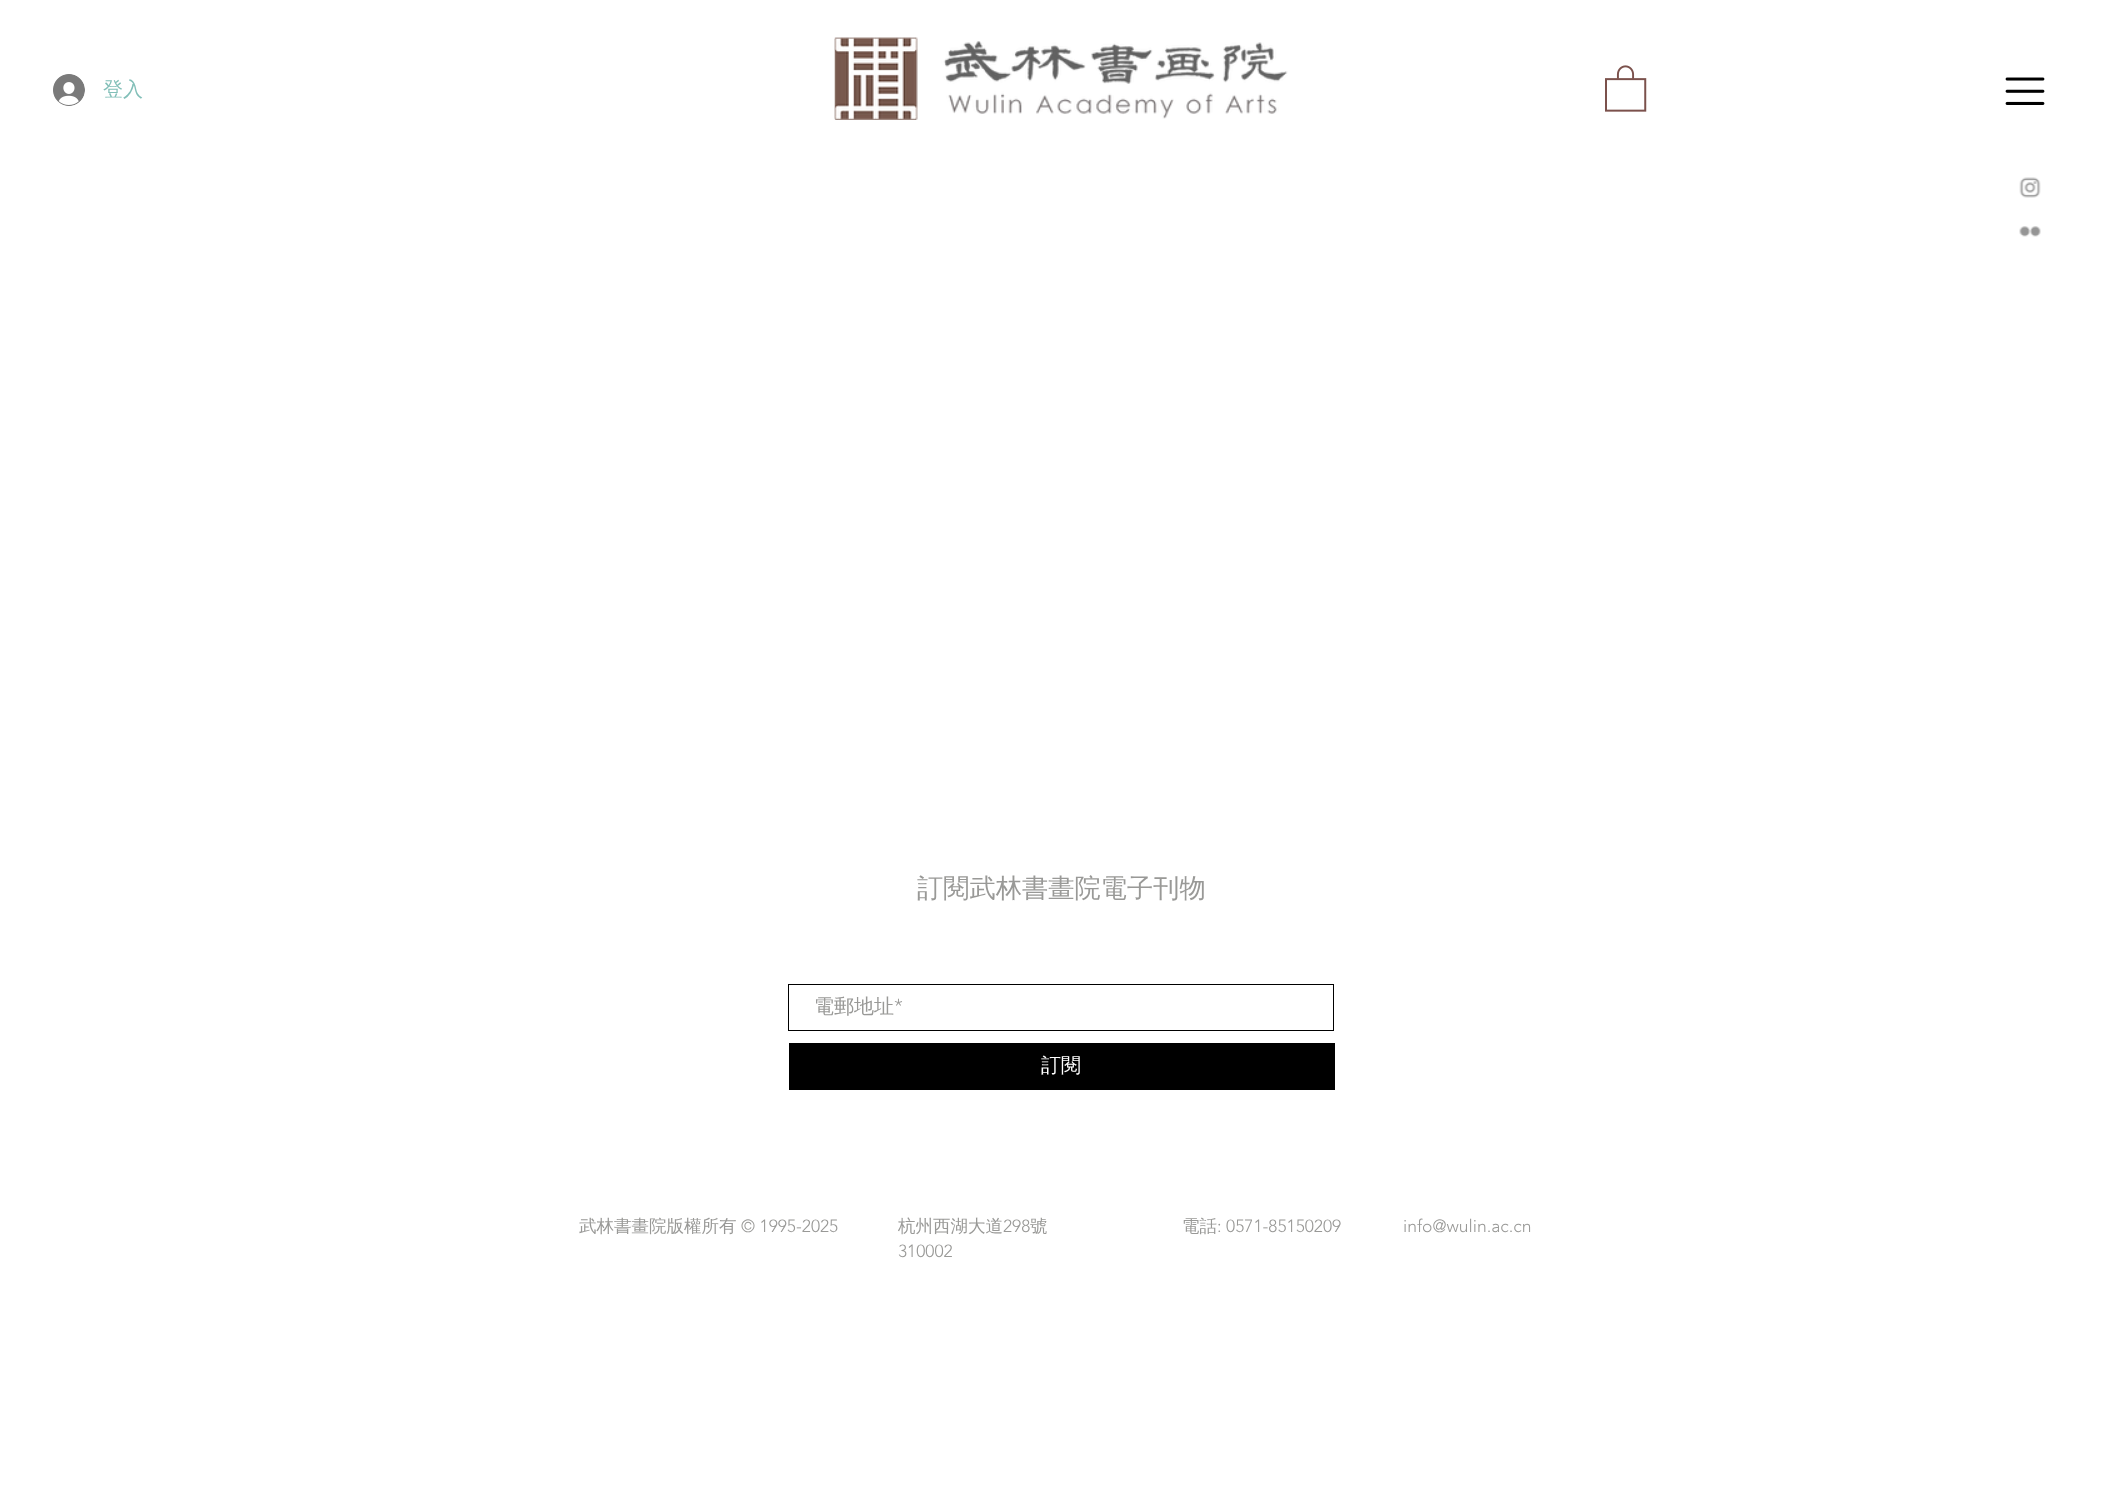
(async () => {
    const canvas = document.querySelector("canvas");
    canvas.width = 2121;
    canvas.height = 1508;
    const context = canvas.getContext("2d");
    context.miterLimit = 4;
    context.fontKerning = "normal";
    function write(s, x, y, font, color) {
        context.font = font;
        context.fillStyle = color;
        context.fillText(s, x, y);
    }
    function block(x, y, w, h, color) {
        context.fillStyle = color;
        context.fillRect(x, y, w, h);
    }
    async function photo(src, x, y, w, h) {
        const img = new Image();
        img.src = src;
        await img.decode();
        context.drawImage(img, x, y, w, h);
    }

    block(0, 0, 2121, 1508, "rgb(255, 255, 255)");
    await photo("media/1.png", 53, 74, 32, 32);
    write("登入", 103, 96, "500 20px WenQuanYi Zen Hei", "rgb(130, 191, 184)");
    await photo("media/2.png", 834, 37, 454, 83);
    await photo("media/3.png", 1605, 65, 42, 47);
    await photo("media/4.png", 2005, 77, 40, 28);
    await photo("media/5.png", 2019, 177, 22, 21);
    await photo("media/6.png", 2019, 226, 22, 11);
    write("訂閱武林書畫院電子刊物", 917, 897, "500 26.25px WenQuanYi Zen Hei", "rgb(153, 153, 151)");
    context.strokeStyle = "rgb(0, 0, 0)";
    context.strokeRect(788.5, 984.5, 545, 46);
    write("電郵地址", 814, 1013, "500 20px WenQuanYi Zen Hei", "rgb(153, 153, 151)");
    write("*", 894, 1013, "300 20px 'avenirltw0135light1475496'", "rgb(153, 153, 151)");
    block(789, 1043, 546, 47, "rgb(0, 0, 0)");
    write("訂閱", 1041, 1072, "500 20px WenQuanYi Zen Hei", "rgb(255, 255, 255)");
    write("武林書畫院版權所有", 579, 1232, "500 17.5px WenQuanYi Zen Hei", "rgb(153, 153, 151)");
    write("© 1995-2025", 741, 1232, "300 17.5px 'avenirltw0135light1475496'", "rgb(153, 153, 151)");
    write("杭州西湖大道", 898, 1232, "500 17.5px WenQuanYi Zen Hei", "rgb(153, 153, 151)");
    write("298", 1003, 1232, "300 17.5px 'avenirltw0135light1475496'", "rgb(153, 153, 151)");
    write("號", 1030, 1232, "500 17.5px WenQuanYi Zen Hei", "rgb(153, 153, 151)");
    write("310002", 898, 1257, "300 17.5px 'avenirltw0135light1475496'", "rgb(153, 153, 151)");
    write("電話", 1182, 1232, "500 17.5px WenQuanYi Zen Hei", "rgb(153, 153, 151)");
    write(": 0571-85150209", 1217, 1232, "300 17.5px 'avenirltw0135light1475496'", "rgb(153, 153, 151)");
    write("info@wulin.ac.cn", 1403, 1232, "300 17.5px 'avenirltw0135light1475496'", "rgb(153, 153, 151)");
})();
